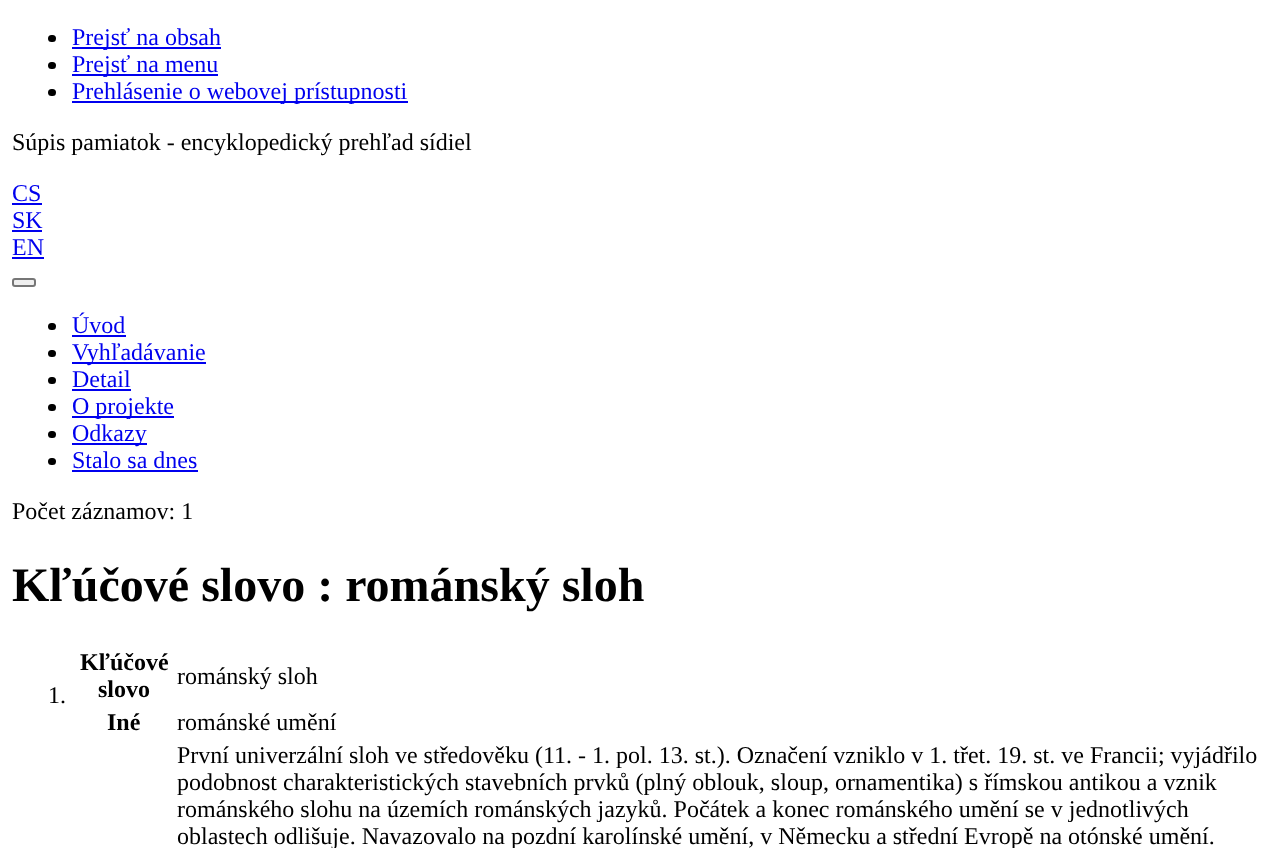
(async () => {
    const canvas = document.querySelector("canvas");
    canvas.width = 1281;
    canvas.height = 848;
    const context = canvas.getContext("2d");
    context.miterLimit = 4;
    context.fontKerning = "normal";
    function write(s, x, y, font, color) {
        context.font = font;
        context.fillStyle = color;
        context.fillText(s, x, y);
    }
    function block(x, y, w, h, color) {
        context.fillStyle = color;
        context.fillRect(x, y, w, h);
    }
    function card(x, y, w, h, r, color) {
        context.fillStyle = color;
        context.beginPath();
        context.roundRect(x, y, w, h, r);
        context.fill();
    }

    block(0, 0, 1281, 848, "rgb(255, 255, 255)");
    card(48, 35, 8, 7, 3.5, "rgb(0, 0, 0)");
    block(72, 47, 149, 2, "rgb(0, 0, 238)");
    write("Prejsť na obsah", 72, 45, "24px Liberation Serif", "rgb(0, 0, 238)");
    card(48, 62, 8, 7, 3.5, "rgb(0, 0, 0)");
    block(72, 74, 146, 2, "rgb(0, 0, 238)");
    write("Prejsť na menu", 72, 72, "24px Liberation Serif", "rgb(0, 0, 238)");
    card(48, 89, 8, 7, 3.5, "rgb(0, 0, 0)");
    block(72, 101, 336, 2, "rgb(0, 0, 238)");
    write("Prehlásenie o webovej prístupnosti", 72, 99, "24px Liberation Serif", "rgb(0, 0, 238)");
    write("Súpis pamiatok - encyklopedický prehľad sídiel", 12, 150, "24px Liberation Serif", "rgb(0, 0, 0)");
    write("CS", 12, 201, "24px Liberation Serif", "rgb(0, 0, 238)");
    block(12, 203, 30, 2, "rgb(0, 0, 238)");
    write("SK", 12, 228, "24px Liberation Serif", "rgb(0, 0, 238)");
    block(12, 230, 30, 2, "rgb(0, 0, 238)");
    write("EN", 12, 255, "24px Liberation Serif", "rgb(0, 0, 238)");
    block(12, 257, 32, 2, "rgb(0, 0, 238)");
    context.fillStyle = "rgb(239, 239, 239)";
    context.beginPath();
    context.roundRect(13, 279, 22, 7, 2);
    context.fill();
    context.strokeStyle = "rgb(118, 118, 118)";
    context.lineWidth = 2;
    context.stroke();
    card(48, 323, 8, 7, 3.5, "rgb(0, 0, 0)");
    write("Úvod", 72, 333, "24px Liberation Serif", "rgb(0, 0, 238)");
    block(72, 335, 54, 2, "rgb(0, 0, 238)");
    card(48, 350, 8, 7, 3.5, "rgb(0, 0, 0)");
    block(72, 362, 134, 2, "rgb(0, 0, 238)");
    write("Vyhľadávanie", 72, 360, "24px Liberation Serif", "rgb(0, 0, 238)");
    card(48, 377, 8, 7, 3.5, "rgb(0, 0, 0)");
    write("Detail", 72, 387, "24px Liberation Serif", "rgb(0, 0, 238)");
    block(72, 389, 59, 2, "rgb(0, 0, 238)");
    card(48, 404, 8, 7, 3.5, "rgb(0, 0, 0)");
    block(72, 416, 102, 2, "rgb(0, 0, 238)");
    write("O projekte", 72, 414, "24px Liberation Serif", "rgb(0, 0, 238)");
    card(48, 431, 8, 7, 3.5, "rgb(0, 0, 0)");
    block(72, 443, 75, 2, "rgb(0, 0, 238)");
    write("Odkazy", 72, 441, "24px Liberation Serif", "rgb(0, 0, 238)");
    card(48, 458, 8, 7, 3.5, "rgb(0, 0, 0)");
    write("Stalo sa dnes", 72, 468, "24px Liberation Serif", "rgb(0, 0, 238)");
    block(72, 470, 126, 2, "rgb(0, 0, 238)");
    write("Počet záznamov: 1", 12, 519, "24px Liberation Serif", "rgb(0, 0, 0)");
    write("Kľúčové slovo : románský sloh", 12, 601, "bold 48px Liberation Serif", "rgb(0, 0, 0)");
    write("1.", 48, 703, "24px Liberation Serif", "rgb(0, 0, 0)");
    write("Kľúčové", 80, 670, "bold 24px Liberation Serif", "rgb(0, 0, 0)");
    write("slovo", 98, 697, "bold 24px Liberation Serif", "rgb(0, 0, 0)");
    write("románský sloh", 177, 684, "24px Liberation Serif", "rgb(0, 0, 0)");
    write("Iné", 107, 730, "bold 24px Liberation Serif", "rgb(0, 0, 0)");
    write("románské umění", 177, 730, "24px Liberation Serif", "rgb(0, 0, 0)");
    write("První univerzální sloh ve středověku (11. - 1. pol. 13. st.). Označení vzniklo v 1. třet. 19. st. ve Francii; vyjádřilo", 177, 763, "24px Liberation Serif", "rgb(0, 0, 0)");
    write("podobnost charakteristických stavebních prvků (plný oblouk, sloup, ornamentika) s římskou antikou a vznik", 177, 790, "24px Liberation Serif", "rgb(0, 0, 0)");
    write("románského slohu na územích románských jazyků. Počátek a konec románského umění se v jednotlivých", 177, 817, "24px Liberation Serif", "rgb(0, 0, 0)");
    write("oblastech odlišuje. Navazovalo na pozdní karolínské umění, v Německu a střední Evropě na otónské umění.", 177, 844, "24px Liberation Serif", "rgb(0, 0, 0)");
})();
